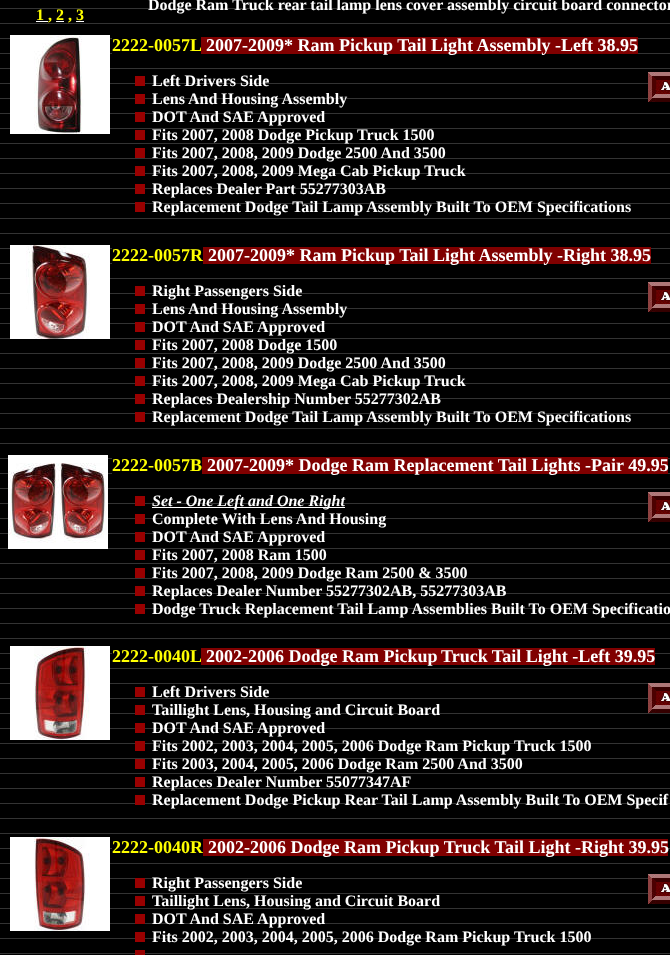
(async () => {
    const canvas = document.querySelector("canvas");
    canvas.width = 670;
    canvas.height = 955;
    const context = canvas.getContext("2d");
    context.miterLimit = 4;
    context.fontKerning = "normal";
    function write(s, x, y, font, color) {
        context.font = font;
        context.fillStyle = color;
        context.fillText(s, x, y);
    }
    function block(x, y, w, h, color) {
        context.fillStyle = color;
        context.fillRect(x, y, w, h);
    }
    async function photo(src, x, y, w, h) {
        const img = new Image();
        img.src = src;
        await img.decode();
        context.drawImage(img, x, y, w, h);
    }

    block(0, 0, 670, 955, "rgb(255, 255, 255)");
    await photo("media/1.png", 0, 0, 670, 955);
    write("Dodge Ram Truck rear tail lamp lens cover assembly circuit board connector", 148, 10, "bold 16px Liberation Serif", "rgb(255, 255, 255)");
    block(36, 21, 12, 1, "rgb(255, 255, 255)");
    write("1 , 2 , 3", 36, 20, "bold 16px Liberation Serif", "rgb(255, 255, 0)");
    block(56, 21, 8, 1, "rgb(255, 255, 255)");
    block(76, 21, 8, 1, "rgb(255, 255, 255)");
    await photo("media/2.png", 10, 35, 100, 99);
    block(112, 38, 89, 16, "rgb(0, 0, 0)");
    write("2222-0057L", 112, 51, "bold 18px Liberation Serif", "rgb(255, 255, 0)");
    block(201, 37, 437, 17, "rgb(128, 0, 0)");
    write("2007-2009* Ram Pickup Tail Light Assembly -Left 38.95", 206, 51, "bold 18px Liberation Serif", "rgb(255, 255, 255)");
    block(135, 76, 10, 10, "rgb(153, 0, 0)");
    write("Left Drivers Side", 152, 86, "bold 16px Liberation Serif", "rgb(255, 255, 255)");
    await photo("media/3.png", 648, 72, 22, 30);
    block(135, 94, 10, 10, "rgb(153, 0, 0)");
    write("Lens And Housing Assembly", 152, 104, "bold 16px Liberation Serif", "rgb(255, 255, 255)");
    block(135, 112, 10, 10, "rgb(153, 0, 0)");
    write("DOT And SAE Approved", 152, 122, "bold 16px Liberation Serif", "rgb(255, 255, 255)");
    block(135, 130, 10, 10, "rgb(153, 0, 0)");
    write("Fits 2007, 2008 Dodge Pickup Truck 1500", 152, 140, "bold 16px Liberation Serif", "rgb(255, 255, 255)");
    block(135, 148, 10, 10, "rgb(153, 0, 0)");
    write("Fits 2007, 2008, 2009 Dodge 2500 And 3500", 152, 158, "bold 16px Liberation Serif", "rgb(255, 255, 255)");
    block(135, 166, 10, 10, "rgb(153, 0, 0)");
    write("Fits 2007, 2008, 2009 Mega Cab Pickup Truck", 152, 176, "bold 16px Liberation Serif", "rgb(255, 255, 255)");
    block(135, 184, 10, 10, "rgb(153, 0, 0)");
    write("Replaces Dealer Part 55277303AB", 152, 194, "bold 16px Liberation Serif", "rgb(255, 255, 255)");
    block(135, 202, 10, 10, "rgb(153, 0, 0)");
    write("Replacement Dodge Tail Lamp Assembly Built To OEM Specifications", 152, 212, "bold 16px Liberation Serif", "rgb(255, 255, 255)");
    await photo("media/4.png", 10, 245, 100, 94);
    block(112, 248, 91, 16, "rgb(0, 0, 0)");
    write("2222-0057R", 112, 261, "bold 18px Liberation Serif", "rgb(255, 255, 0)");
    block(203, 247, 448, 17, "rgb(128, 0, 0)");
    write("2007-2009* Ram Pickup Tail Light Assembly -Right 38.95", 208, 261, "bold 18px Liberation Serif", "rgb(255, 255, 255)");
    block(135, 286, 10, 10, "rgb(153, 0, 0)");
    write("Right Passengers Side", 152, 296, "bold 16px Liberation Serif", "rgb(255, 255, 255)");
    await photo("media/3.png", 648, 282, 22, 30);
    block(135, 304, 10, 10, "rgb(153, 0, 0)");
    write("Lens And Housing Assembly", 152, 314, "bold 16px Liberation Serif", "rgb(255, 255, 255)");
    block(135, 322, 10, 10, "rgb(153, 0, 0)");
    write("DOT And SAE Approved", 152, 332, "bold 16px Liberation Serif", "rgb(255, 255, 255)");
    block(135, 340, 10, 10, "rgb(153, 0, 0)");
    write("Fits 2007, 2008 Dodge 1500", 152, 350, "bold 16px Liberation Serif", "rgb(255, 255, 255)");
    block(135, 358, 10, 10, "rgb(153, 0, 0)");
    write("Fits 2007, 2008, 2009 Dodge 2500 And 3500", 152, 368, "bold 16px Liberation Serif", "rgb(255, 255, 255)");
    block(135, 376, 10, 10, "rgb(153, 0, 0)");
    write("Fits 2007, 2008, 2009 Mega Cab Pickup Truck", 152, 386, "bold 16px Liberation Serif", "rgb(255, 255, 255)");
    block(135, 394, 10, 10, "rgb(153, 0, 0)");
    write("Replaces Dealership Number 55277302AB", 152, 404, "bold 16px Liberation Serif", "rgb(255, 255, 255)");
    block(135, 412, 10, 10, "rgb(153, 0, 0)");
    write("Replacement Dodge Tail Lamp Assembly Built To OEM Specifications", 152, 422, "bold 16px Liberation Serif", "rgb(255, 255, 255)");
    await photo("media/5.png", 8, 455, 100, 94);
    block(112, 458, 90, 16, "rgb(0, 0, 0)");
    write("2222-0057B", 112, 471, "bold 18px Liberation Serif", "rgb(255, 255, 0)");
    block(202, 457, 466, 17, "rgb(128, 0, 0)");
    write("2007-2009* Dodge Ram Replacement Tail Lights -Pair 49.95", 207, 471, "bold 18px Liberation Serif", "rgb(255, 255, 255)");
    block(135, 496, 10, 10, "rgb(153, 0, 0)");
    block(152, 507, 193, 1, "rgb(255, 255, 255)");
    write("Set - One Left and One Right", 152, 506, "italic bold 16px Liberation Serif", "rgb(255, 255, 255)");
    await photo("media/3.png", 648, 492, 22, 30);
    block(135, 514, 10, 10, "rgb(153, 0, 0)");
    write("Complete With Lens And Housing", 152, 524, "bold 16px Liberation Serif", "rgb(255, 255, 255)");
    block(135, 532, 10, 10, "rgb(153, 0, 0)");
    write("DOT And SAE Approved", 152, 542, "bold 16px Liberation Serif", "rgb(255, 255, 255)");
    block(135, 550, 10, 10, "rgb(153, 0, 0)");
    write("Fits 2007, 2008 Ram 1500", 152, 560, "bold 16px Liberation Serif", "rgb(255, 255, 255)");
    block(135, 568, 10, 10, "rgb(153, 0, 0)");
    write("Fits 2007, 2008, 2009 Dodge Ram 2500 & 3500", 152, 578, "bold 16px Liberation Serif", "rgb(255, 255, 255)");
    block(135, 586, 10, 10, "rgb(153, 0, 0)");
    write("Replaces Dealer Number 55277302AB, 55277303AB", 152, 596, "bold 16px Liberation Serif", "rgb(255, 255, 255)");
    block(135, 604, 10, 10, "rgb(153, 0, 0)");
    write("Dodge Truck Replacement Tail Lamp Assemblies Built To OEM Specificatio", 152, 614, "bold 16px Liberation Serif", "rgb(255, 255, 255)");
    await photo("media/6.png", 10, 646, 100, 94);
    block(112, 653, 89, 1, "rgb(0, 0, 0)");
    write("2222-0040L", 112, 662, "bold 18px Liberation Serif", "rgb(255, 255, 0)");
    block(201, 648, 454, 17, "rgb(128, 0, 0)");
    write("2002-2006 Dodge", 206, 662, "bold 18px Liberation Serif", "rgb(255, 255, 255)");
    write("Ram Pickup", 342, 662, "bold 18px Liberation Serif", "rgb(255, 255, 255)");
    write("Truck Tail Light -Left 39.95", 441, 662, "bold 18px Liberation Serif", "rgb(255, 255, 255)");
    block(135, 687, 10, 10, "rgb(153, 0, 0)");
    write("Left Drivers Side", 152, 697, "bold 16px Liberation Serif", "rgb(255, 255, 255)");
    await photo("media/3.png", 648, 683, 22, 30);
    block(135, 705, 10, 10, "rgb(153, 0, 0)");
    write("Taillight Lens, Housing and Circuit Board", 152, 715, "bold 16px Liberation Serif", "rgb(255, 255, 255)");
    block(135, 723, 10, 10, "rgb(153, 0, 0)");
    write("DOT And SAE Approved", 152, 733, "bold 16px Liberation Serif", "rgb(255, 255, 255)");
    block(135, 741, 10, 10, "rgb(153, 0, 0)");
    write("Fits 2002, 2003, 2004, 2005, 2006 Dodge Ram Pickup Truck 1500", 152, 751, "bold 16px Liberation Serif", "rgb(255, 255, 255)");
    block(135, 759, 10, 10, "rgb(153, 0, 0)");
    write("Fits 2003, 2004, 2005, 2006 Dodge Ram 2500 And 3500", 152, 769, "bold 16px Liberation Serif", "rgb(255, 255, 255)");
    block(135, 777, 10, 10, "rgb(153, 0, 0)");
    write("Replaces Dealer Number 55077347AF", 152, 787, "bold 16px Liberation Serif", "rgb(255, 255, 255)");
    block(135, 795, 10, 10, "rgb(153, 0, 0)");
    write("Replacement Dodge Pickup Rear Tail Lamp Assembly Built To OEM Specif", 152, 805, "bold 16px Liberation Serif", "rgb(255, 255, 255)");
    await photo("media/7.png", 10, 837, 100, 94);
    block(112, 848, 91, 1, "rgb(0, 0, 0)");
    write("2222-0040R", 112, 853, "bold 18px Liberation Serif", "rgb(255, 255, 0)");
    block(203, 839, 465, 17, "rgb(128, 0, 0)");
    write("2002-2006 Dodge Ram Pickup Truck Tail Light -Right 39.95", 208, 853, "bold 18px Liberation Serif", "rgb(255, 255, 255)");
    block(135, 878, 10, 10, "rgb(153, 0, 0)");
    write("Right Passengers Side", 152, 888, "bold 16px Liberation Serif", "rgb(255, 255, 255)");
    await photo("media/3.png", 648, 874, 22, 30);
    block(135, 896, 10, 10, "rgb(153, 0, 0)");
    write("Taillight Lens, Housing and Circuit Board", 152, 906, "bold 16px Liberation Serif", "rgb(255, 255, 255)");
    block(135, 914, 10, 10, "rgb(153, 0, 0)");
    write("DOT And SAE Approved", 152, 924, "bold 16px Liberation Serif", "rgb(255, 255, 255)");
    block(135, 932, 10, 10, "rgb(153, 0, 0)");
    write("Fits 2002, 2003, 2004, 2005, 2006 Dodge Ram Pickup Truck 1500", 152, 942, "bold 16px Liberation Serif", "rgb(255, 255, 255)");
    block(135, 950, 10, 5, "rgb(153, 0, 0)");
})();
